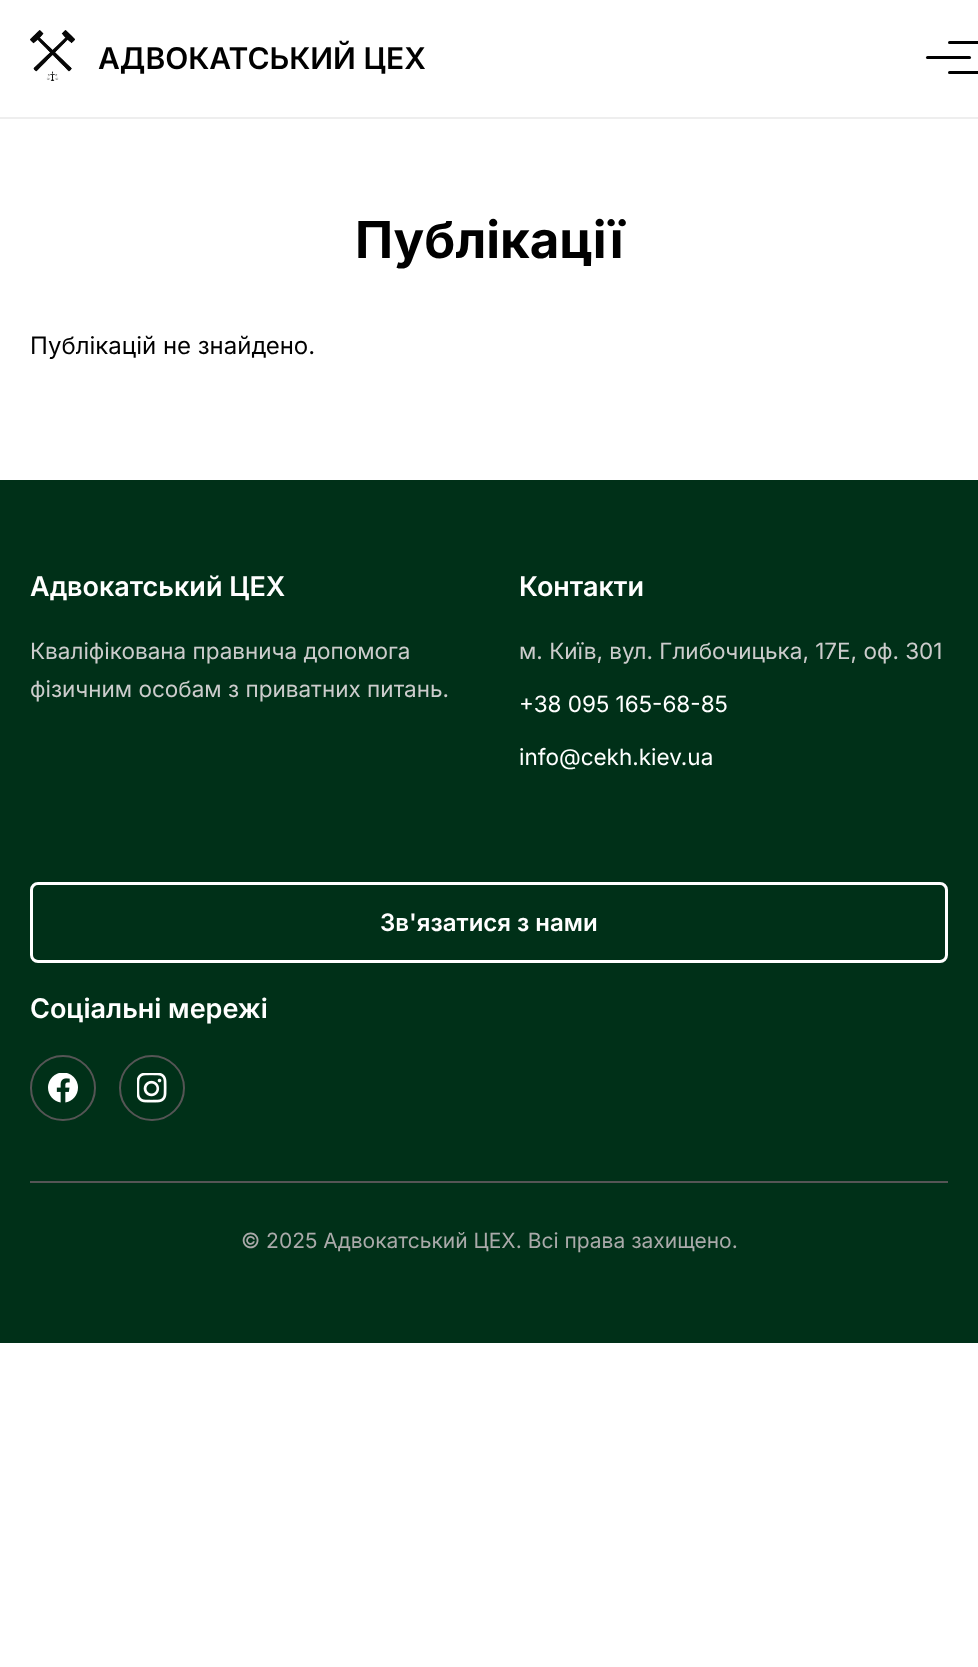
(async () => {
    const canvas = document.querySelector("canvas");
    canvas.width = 978;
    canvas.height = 1667;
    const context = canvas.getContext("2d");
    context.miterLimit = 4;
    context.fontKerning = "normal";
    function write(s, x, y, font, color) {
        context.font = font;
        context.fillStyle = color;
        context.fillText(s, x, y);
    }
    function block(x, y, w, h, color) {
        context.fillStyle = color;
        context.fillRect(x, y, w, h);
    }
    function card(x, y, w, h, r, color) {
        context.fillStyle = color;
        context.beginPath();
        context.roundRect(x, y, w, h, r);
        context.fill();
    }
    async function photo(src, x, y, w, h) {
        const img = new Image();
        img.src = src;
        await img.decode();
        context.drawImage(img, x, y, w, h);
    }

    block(0, 0, 978, 1667, "rgb(255, 255, 255)");
    block(0, 117, 978, 2, "rgb(238, 238, 238)");
    await photo("media/1.png", 30, 30, 45, 51);
    write("АДВОКАТСЬКИЙ ЦЕХ", 98, 69, "600 30px Inter", "rgb(0, 0, 0)");
    card(926, 56, 45, 3, 1.5, "rgb(0, 0, 0)");
    card(948, 41, 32, 3, 1.5, "rgb(0, 0, 0)");
    card(948, 71, 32, 3, 1.5, "rgb(0, 0, 0)");
    write("Публікації", 355, 258, "bold 51px Inter", "rgb(0, 0, 0)");
    write("Публікацій не знайдено.", 30, 354, "24px Inter", "rgb(0, 0, 0)");
    block(0, 480, 978, 863, "rgb(0, 48, 24)");
    write("Адвокатський ЦЕХ", 30, 596, "600 27px Inter", "rgb(255, 255, 255)");
    write("Кваліфікована правнича допомога", 30, 659, "22.5px Inter", "rgb(204, 204, 204)");
    write("фізичним особам з приватних питань.", 30, 697, "22.5px Inter", "rgb(204, 204, 204)");
    write("Контакти", 519, 596, "600 27px Inter", "rgb(255, 255, 255)");
    write("м. Київ, вул. Глибочицька, 17Е, оф. 301", 519, 659, "22.5px Inter", "rgb(204, 204, 204)");
    write("+38 095 165-68-85", 519, 712, "22.5px Inter", "rgb(255, 255, 255)");
    write("info@cekh.kiev.ua", 519, 765, "22.5px Inter", "rgb(255, 255, 255)");
    context.beginPath();
    context.roundRect(31.5, 883.5, 915, 78, 6.5);
    context.strokeStyle = "rgb(255, 255, 255)";
    context.lineWidth = 3;
    context.stroke();
    write("Зв'язатися з нами", 380, 931, "600 24px Inter", "rgb(255, 255, 255)");
    write("Соціальні мережі", 30, 1018, "600 27px Inter", "rgb(255, 255, 255)");
    context.beginPath();
    context.arc(63, 1088, 32, 0, Math.PI * 2);
    context.strokeStyle = "rgb(85, 85, 85)";
    context.lineWidth = 2;
    context.stroke();
    await photo("media/2.png", 48, 1073, 30, 30);
    context.beginPath();
    context.arc(152, 1088, 32, 0, Math.PI * 2);
    context.stroke();
    await photo("media/3.png", 137, 1073, 30, 30);
    block(30, 1181, 918, 2, "rgb(85, 85, 85)");
    write("© 2025 Адвокатський ЦЕХ. Всі права захищено.", 241, 1248, "21px Inter", "rgb(170, 170, 170)");
})();
